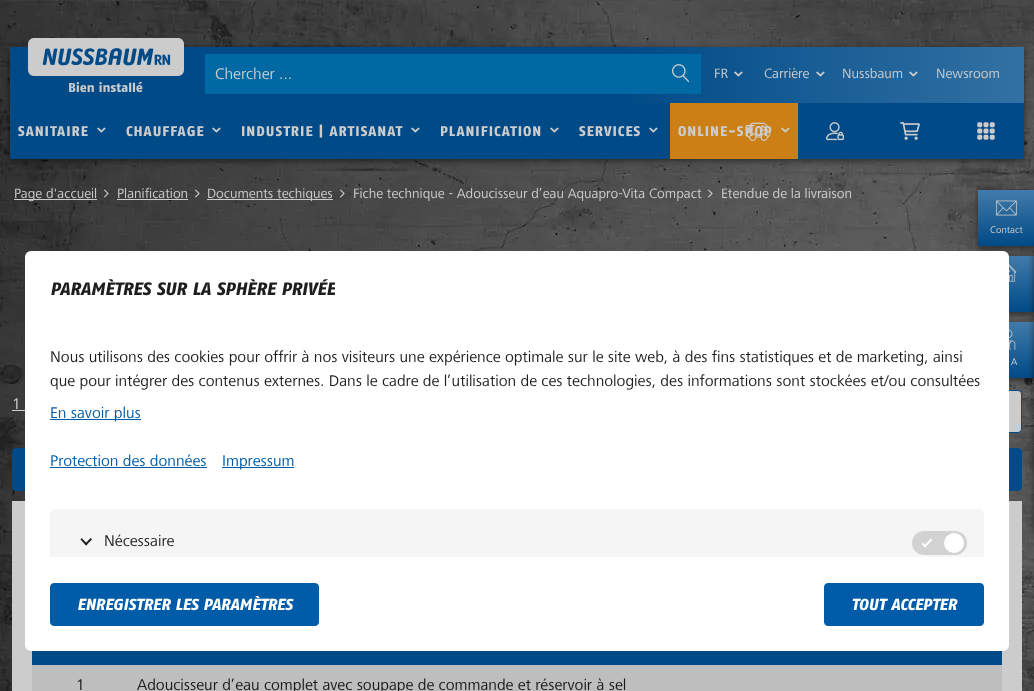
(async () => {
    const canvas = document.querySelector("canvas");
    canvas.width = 1034;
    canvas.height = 691;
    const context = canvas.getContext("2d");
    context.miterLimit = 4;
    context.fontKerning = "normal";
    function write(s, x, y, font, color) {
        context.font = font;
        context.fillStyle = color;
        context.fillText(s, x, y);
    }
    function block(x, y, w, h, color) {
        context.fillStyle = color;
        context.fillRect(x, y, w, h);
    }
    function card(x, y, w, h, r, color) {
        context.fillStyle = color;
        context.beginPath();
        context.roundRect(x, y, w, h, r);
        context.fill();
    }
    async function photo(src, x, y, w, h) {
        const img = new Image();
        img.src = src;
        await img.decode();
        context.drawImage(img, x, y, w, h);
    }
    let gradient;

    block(0, 0, 1034, 691, "rgb(255, 255, 255)");
    await photo("media/1.png", 0, 0, 1034, 691);
    context.fillStyle = "rgba(0, 0, 0, 0.5)";
    context.filter = "blur(3px)";
    context.beginPath();
    context.rect(10, 49, 1014, 112);
    context.fill();
    context.filter = "none";
    gradient = context.createLinearGradient(10, 103, 1024, 103);
    gradient.addColorStop(0.6, "rgb(0, 74, 135)");
    gradient.addColorStop(1, "rgb(50, 113, 163)");
    context.fillStyle = gradient;
    context.fillRect(10, 47, 1014, 56);
    await photo("media/2.png", 28, 38, 156, 55);
    block(205, 54, 496, 40, "rgb(0, 104, 162)");
    write("Chercher ...", 215, 79, "16px 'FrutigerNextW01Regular'", "rgb(204, 204, 204)");
    await photo("media/3.png", 672, 64, 18, 19);
    write("FR", 714, 78, "14px 'FrutigerNextW01Regular'", "rgb(204, 204, 204)");
    await photo("media/4.png", 734, 71, 9, 6);
    write("Carrière", 764, 78, "14px 'FrutigerNextW01Regular'", "rgb(204, 204, 204)");
    await photo("media/5.png", 816, 71, 9, 6);
    write("Nussbaum", 842, 78, "14px 'FrutigerNextW01Regular'", "rgb(204, 204, 204)");
    await photo("media/6.png", 909, 71, 9, 6);
    write("Newsroom", 936, 78, "14px 'FrutigerNextW01Regular'", "rgb(204, 204, 204)");
    block(10, 103, 1014, 56, "rgb(0, 74, 135)");
    context.letterSpacing = "1px";
    write("SANITAIRE", 18, 136, "bold 14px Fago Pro", "rgb(204, 204, 204)");
    await photo("media/7.png", 97, 127, 9, 6);
    write("CHAUFFAGE", 126, 136, "bold 14px Fago Pro", "rgb(204, 204, 204)");
    await photo("media/7.png", 212, 127, 9, 6);
    write("INDUSTRIE | ARTISANAT", 241, 136, "bold 14px Fago Pro", "rgb(204, 204, 204)");
    await photo("media/7.png", 411, 127, 9, 6);
    write("PLANIFICATION", 440, 136, "bold 14px Fago Pro", "rgb(204, 204, 204)");
    await photo("media/7.png", 550, 127, 9, 6);
    write("SERVICES", 579, 136, "bold 14px Fago Pro", "rgb(204, 204, 204)");
    await photo("media/7.png", 649, 127, 9, 6);
    block(670, 103, 128, 56, "rgb(204, 127, 20)");
    write("ONLINE-SHOP", 678, 136, "bold 14px Fago Pro", "rgb(204, 204, 204)");
    await photo("media/8.png", 781, 127, 9, 6);
    await photo("media/9.png", 746, 122, 25, 20);
    await photo("media/10.png", 826, 122, 18, 19);
    await photo("media/11.png", 900, 122, 20, 18);
    await photo("media/12.png", 977, 122, 18, 18);
    block(14, 199, 83, 1, "rgb(204, 204, 204)");
    context.letterSpacing = "0px";
    write("Page d'accueil", 14, 198, "14px 'FrutigerNextW01Regular'", "rgb(204, 204, 204)");
    await photo("media/13.png", 104, 189, 5, 9);
    write("Planification", 117, 198, "14px 'FrutigerNextW01Regular'", "rgb(204, 204, 204)");
    block(117, 199, 71, 1, "rgb(204, 204, 204)");
    await photo("media/14.png", 195, 189, 5, 9);
    block(207, 199, 126, 1, "rgb(204, 204, 204)");
    write("Documents techiques", 207, 198, "14px 'FrutigerNextW01Regular'", "rgb(204, 204, 204)");
    await photo("media/15.png", 340, 189, 5, 9);
    write("Fiche technique - Adoucisseur d’eau Aquapro-Vita Compact", 353, 198, "14px 'FrutigerNextW01Regular'", "rgb(204, 204, 204)");
    await photo("media/16.png", 708, 189, 5, 9);
    write("Etendue de la livraison", 721, 198, "14px 'FrutigerNextW01Regular'", "rgb(204, 204, 204)");
    write("1", 12, 409, "16px 'FrutigerNextW01Regular'", "rgb(204, 204, 204)");
    block(12, 410, 13, 1, "rgb(204, 204, 204)");
    context.beginPath();
    context.roundRect(713.5, 390.5, 308, 42, 3.5);
    context.fill();
    context.strokeStyle = "rgb(0, 74, 135)";
    context.stroke();
    context.fillStyle = "rgb(0, 74, 135)";
    context.beginPath();
    context.roundRect(12.5, 448.5, 1009, 42, 3.5);
    context.fill();
    context.stroke();
    block(12, 501, 1010, 190, "rgb(204, 204, 204)");
    block(32, 651, 970, 14, "rgb(0, 74, 135)");
    block(32, 665, 970, 26, "rgb(190, 190, 190)");
    write("1", 76, 690, "16px 'FrutigerNextW01Regular'", "rgb(24, 24, 24)");
    write("Adoucisseur d’eau complet avec soupape de commande et réservoir à sel", 137, 690, "16px 'FrutigerNextW01Regular'", "rgb(24, 24, 24)");
    context.fillStyle = "rgba(0, 0, 0, 0.5)";
    context.filter = "blur(3px)";
    context.beginPath();
    context.rect(978, 192, 56, 56);
    context.fill();
    context.filter = "none";
    gradient = context.createLinearGradient(1006, 190, 1006, 246);
    gradient.addColorStop(0, "rgb(66, 123, 170)");
    gradient.addColorStop(1, "rgb(0, 74, 135)");
    context.fillStyle = gradient;
    context.fillRect(978, 190, 56, 56);
    await photo("media/17.png", 996, 200, 21, 16);
    write("Contact", 990, 233, "10px 'FrutigerNextW01Regular'", "rgb(204, 204, 204)");
    context.fillStyle = "rgba(0, 0, 0, 0.5)";
    context.filter = "blur(3px)";
    context.beginPath();
    context.rect(978, 258, 56, 56);
    context.fill();
    context.filter = "none";
    gradient = context.createLinearGradient(1006, 256, 1006, 312);
    gradient.addColorStop(0, "rgb(66, 123, 170)");
    gradient.addColorStop(1, "rgb(0, 74, 135)");
    context.fillStyle = gradient;
    context.fillRect(1008, 256, 26, 56);
    context.fillStyle = "rgba(0, 0, 0, 0.5)";
    context.filter = "blur(3px)";
    context.beginPath();
    context.rect(978, 324, 56, 56);
    context.fill();
    context.filter = "none";
    gradient = context.createLinearGradient(1006, 322, 1006, 378);
    gradient.addColorStop(0, "rgb(66, 123, 170)");
    gradient.addColorStop(1, "rgb(0, 74, 135)");
    context.fillStyle = gradient;
    context.fillRect(1009, 322, 25, 56);
    context.fillStyle = "rgba(0, 0, 0, 0.5)";
    context.filter = "blur(3px)";
    context.beginPath();
    context.rect(1034, 248, 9, 285);
    context.fill();
    context.filter = "none";
    await photo("media/18.png", 1009, 264, 8, 18);
    await photo("media/19.png", 1009, 329, 7, 21);
    write("A", 1011, 365, "10px 'FrutigerNextW01Regular'", "rgb(204, 204, 204)");
    context.fillStyle = "rgb(255, 255, 255)";
    context.beginPath();
    context.roundRect(25, 251, 984, 78, [6, 6, 0, 0]);
    context.fill();
    context.save();
    context.beginPath();
    context.rect(50, 276, 285, 27);
    context.clip();
    write("PARAMÈTRES SUR LA SPHÈRE PRIVÉE", 50, 295, "bold 18px 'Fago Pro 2'", "rgb(30, 30, 30)");
    context.restore();
    block(25, 329, 984, 228, "rgb(255, 255, 255)");
    write("Nous utilisons des cookies pour offrir à nos visiteurs une expérience optimale sur le site web, à des fins statistiques et de marketing, ainsi", 50, 362, "16px 'FrutigerNextW01Regular'", "rgb(30, 30, 30)");
    write("que pour intégrer des contenus externes. Dans le cadre de l’utilisation de ces technologies, des informations sont stockées et/ou consultées", 50, 386, "16px 'FrutigerNextW01Regular'", "rgb(30, 30, 30)");
    block(50, 419, 91, 1, "rgb(0, 92, 169)");
    write("En savoir plus", 50, 418, "16px 'FrutigerNextW01Regular'", "rgb(0, 92, 169)");
    write("Protection des données", 50, 466, "16px 'FrutigerNextW01Regular'", "rgb(0, 92, 169)");
    block(50, 467, 157, 1, "rgb(0, 92, 169)");
    block(222, 467, 72, 1, "rgb(0, 92, 169)");
    write("Impressum", 222, 466, "16px 'FrutigerNextW01Regular'", "rgb(0, 92, 169)");
    context.fillStyle = "rgb(245, 245, 245)";
    context.beginPath();
    context.roundRect(50, 509, 934, 48, [6, 6, 0, 0]);
    context.fill();
    context.fillStyle = "rgb(30, 30, 30)";
    context.beginPath();
    context.moveTo(90.5, 538);
    context.lineTo(92, 539.5);
    context.lineTo(86, 545.5);
    context.lineTo(85, 544);
    context.closePath();
    context.fill();
    context.beginPath();
    context.moveTo(81.5, 538);
    context.lineTo(87.5, 544);
    context.lineTo(86, 545.5);
    context.lineTo(80.5, 539.5);
    context.closePath();
    context.fill();
    write("Nécessaire", 104, 546, "16px 'FrutigerNextW01Regular'", "rgb(30, 30, 30)");
    card(912, 531, 55, 24, 12, "rgb(210, 210, 210)");
    context.fillStyle = "rgb(255, 255, 255)";
    context.beginPath();
    context.moveTo(931, 538.5);
    context.lineTo(932.5, 540);
    context.lineTo(925, 547.5);
    context.lineTo(923.5, 546);
    context.closePath();
    context.fill();
    context.beginPath();
    context.moveTo(923, 542.5);
    context.lineTo(926.5, 546);
    context.lineTo(925, 547.5);
    context.lineTo(921.5, 544);
    context.closePath();
    context.fill();
    context.beginPath();
    context.arc(954, 543, 10, 0, Math.PI * 2);
    context.fill();
    context.beginPath();
    context.roundRect(25, 557, 984, 94, [0, 0, 6, 6]);
    context.fill();
    context.fillStyle = "rgb(0, 92, 169)";
    context.beginPath();
    context.roundRect(50.5, 583.5, 268, 42, 3.5);
    context.fill();
    context.strokeStyle = "rgb(0, 92, 169)";
    context.stroke();
    write("ENREGISTRER LES PARAMÈTRES", 77, 610, "bold 16px 'Fago Pro 2'", "rgb(255, 255, 255)");
    context.fillStyle = "rgb(0, 92, 169)";
    context.beginPath();
    context.roundRect(824.5, 583.5, 159, 42, 3.5);
    context.fill();
    context.stroke();
    write("TOUT ACCEPTER", 851, 610, "bold 16px 'Fago Pro 2'", "rgb(255, 255, 255)");
})();
